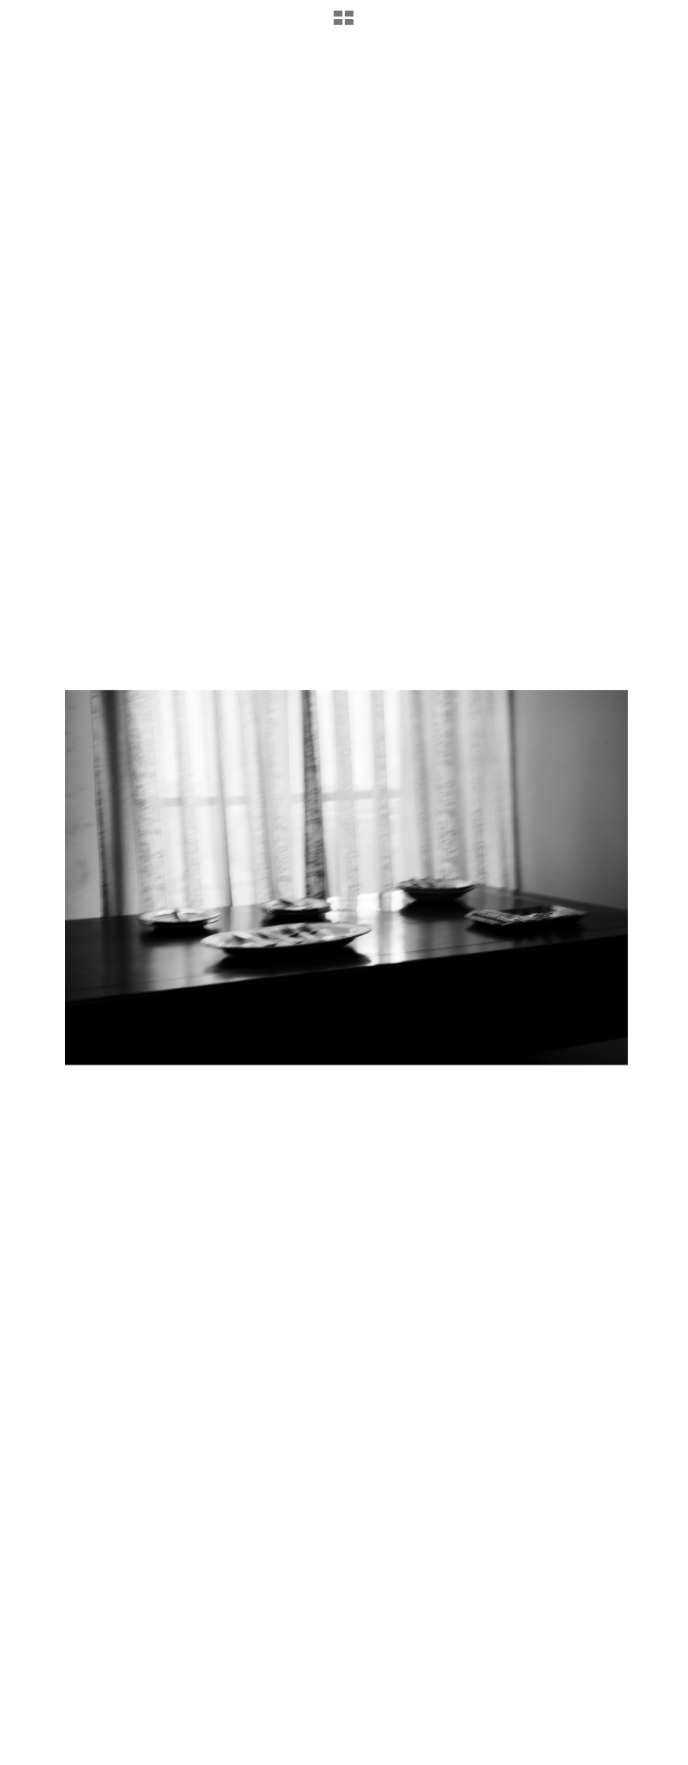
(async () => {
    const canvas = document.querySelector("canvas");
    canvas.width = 688;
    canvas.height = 1765;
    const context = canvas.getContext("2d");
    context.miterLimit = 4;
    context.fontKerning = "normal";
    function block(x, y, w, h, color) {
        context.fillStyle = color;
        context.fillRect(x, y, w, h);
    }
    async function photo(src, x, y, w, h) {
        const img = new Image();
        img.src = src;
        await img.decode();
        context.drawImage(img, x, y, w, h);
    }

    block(0, 0, 688, 1765, "rgb(255, 255, 255)");
    await photo("media/1.png", 333, 10, 21, 15);
    await photo("media/2.png", 65, 689, 563, 377);
})();
